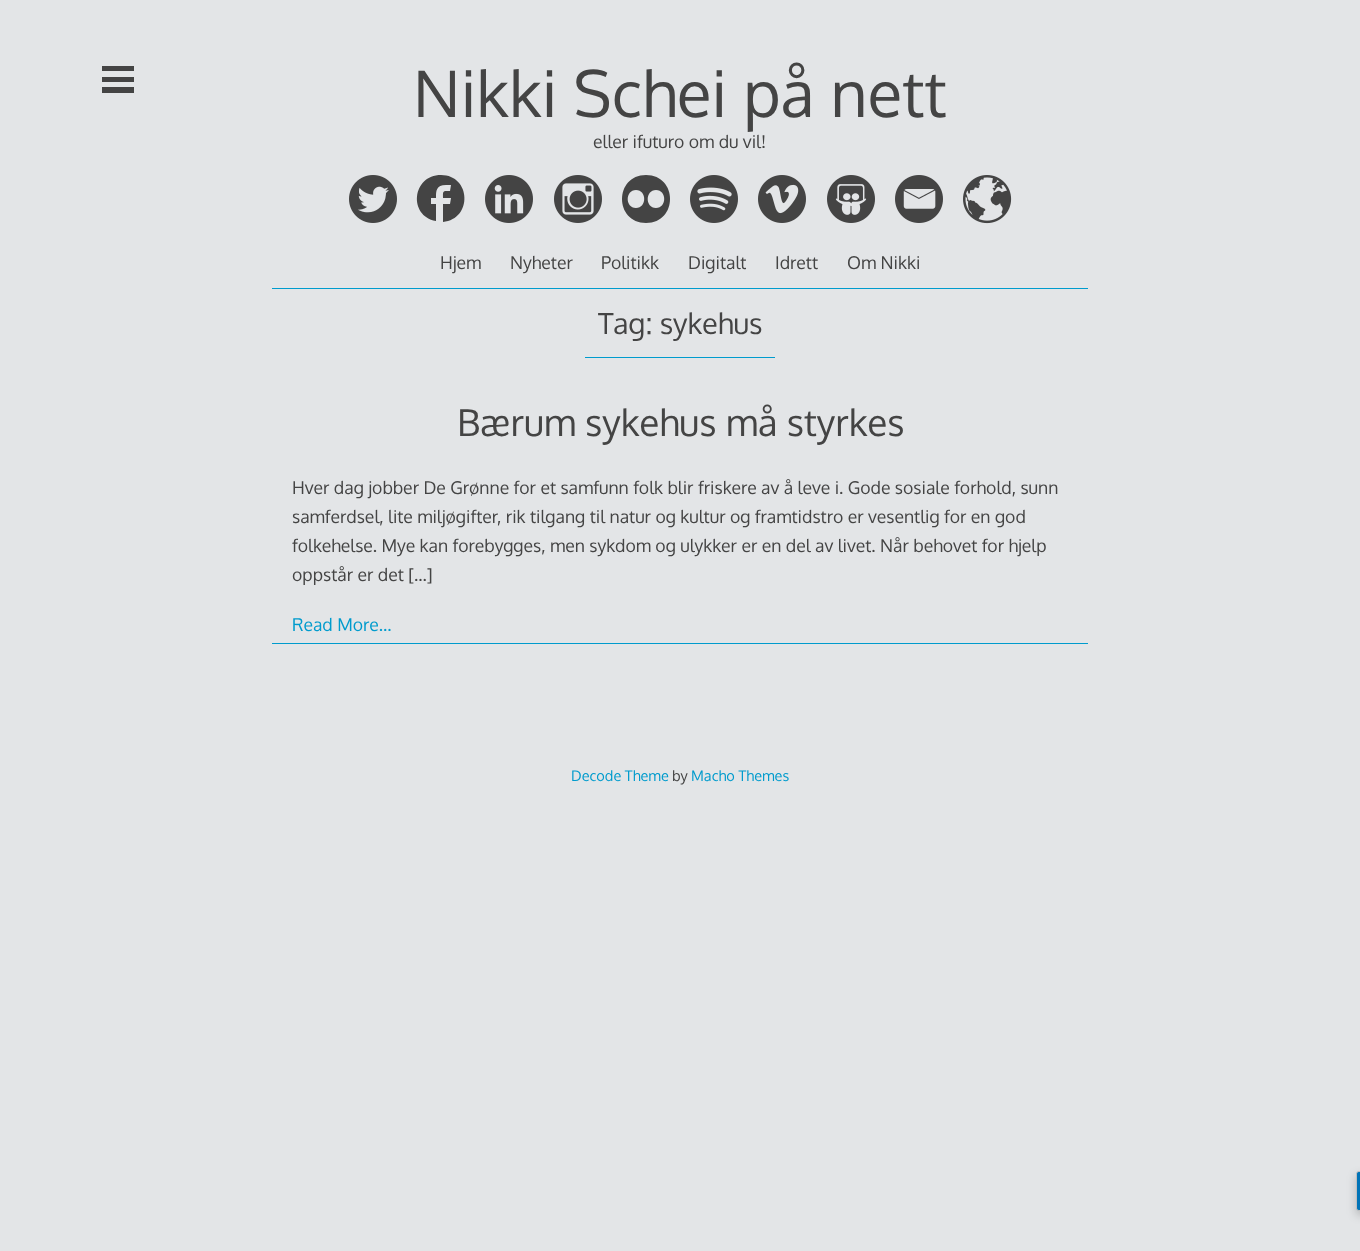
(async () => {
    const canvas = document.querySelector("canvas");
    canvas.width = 1360;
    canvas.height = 1251;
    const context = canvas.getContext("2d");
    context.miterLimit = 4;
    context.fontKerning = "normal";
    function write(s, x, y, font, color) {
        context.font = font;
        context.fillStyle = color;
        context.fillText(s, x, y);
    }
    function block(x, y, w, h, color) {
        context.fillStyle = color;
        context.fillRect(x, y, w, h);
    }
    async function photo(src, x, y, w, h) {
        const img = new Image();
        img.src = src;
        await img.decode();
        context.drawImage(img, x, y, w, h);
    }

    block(0, 0, 1360, 1251, "rgb(227, 229, 231)");
    block(102, 66, 32, 5, "rgb(68, 68, 68)");
    block(102, 77, 32, 5, "rgb(68, 68, 68)");
    block(102, 87, 32, 6, "rgb(68, 68, 68)");
    block(272, 288, 816, 1, "rgb(0, 155, 205)");
    write("Nikki Schei på nett", 413, 117, "64px Oxygen", "rgb(68, 68, 68)");
    write("eller ifuturo om du vil!", 593, 148, "17.6px Oxygen", "rgb(68, 68, 68)");
    await photo("media/1.png", 349, 175, 48, 48);
    context.beginPath();
    context.moveTo(441, 175);
    context.bezierCurveTo(471, 175, 473, 219, 443, 222);
    context.lineTo(443, 204);
    context.lineTo(450, 204);
    context.lineTo(451, 198);
    context.lineTo(443, 198);
    context.bezierCurveTo(443, 191, 442, 191, 450, 191);
    context.lineTo(451, 185);
    context.lineTo(446, 185);
    context.bezierCurveTo(436, 185, 436, 191, 436, 198);
    context.lineTo(431, 198);
    context.lineTo(431, 204);
    context.lineTo(436, 204);
    context.lineTo(436, 221);
    context.bezierCurveTo(408, 216, 412, 175, 441, 175);
    context.closePath();
    context.fill("evenodd");
    await photo("media/2.png", 485, 175, 48, 48);
    await photo("media/3.png", 554, 175, 48, 48);
    context.beginPath();
    context.moveTo(646, 175);
    context.bezierCurveTo(614, 175, 614, 223, 646, 223);
    context.bezierCurveTo(678, 223, 678, 175, 646, 175);
    context.closePath();
    context.moveTo(636, 190);
    context.bezierCurveTo(647, 190, 647, 208, 636, 208);
    context.bezierCurveTo(625, 208, 625, 190, 636, 190);
    context.closePath();
    context.moveTo(656, 190);
    context.bezierCurveTo(667, 190, 667, 208, 656, 208);
    context.bezierCurveTo(645, 208, 645, 190, 656, 190);
    context.closePath();
    context.fill("evenodd");
    await photo("media/4.png", 690, 175, 48, 48);
    await photo("media/5.png", 758, 175, 48, 48);
    await photo("media/6.png", 827, 175, 48, 48);
    await photo("media/7.png", 895, 175, 48, 48);
    await photo("media/8.png", 963, 175, 49, 49);
    write("Hjem", 440, 269, "17.6px Oxygen", "rgb(68, 68, 68)");
    write("Nyheter", 510, 269, "17.6px Oxygen", "rgb(68, 68, 68)");
    write("Politikk", 601, 269, "17.6px Oxygen", "rgb(68, 68, 68)");
    write("Digitalt", 688, 269, "17.6px Oxygen", "rgb(68, 68, 68)");
    write("Idrett", 775, 269, "17.6px Oxygen", "rgb(68, 68, 68)");
    write("Om Nikki", 847, 269, "17.6px Oxygen", "rgb(68, 68, 68)");
    block(585, 357, 190, 1, "rgb(0, 155, 205)");
    write("Tag: sykehus", 598, 334, "29px Oxygen", "rgb(68, 68, 68)");
    write("Bærum sykehus må styrkes", 457, 436, "37px Oxygen", "rgb(68, 68, 68)");
    write("Hver dag jobber De Grønne for et samfunn folk blir friskere av å leve i. Gode sosiale forhold, sunn", 292, 494, "17.6px Oxygen", "rgb(68, 68, 68)");
    write("samferdsel, lite miljøgifter, rik tilgang til natur og kultur og framtidstro er vesentlig for en god", 292, 523, "17.6px Oxygen", "rgb(68, 68, 68)");
    write("folkehelse. Mye kan forebygges, men sykdom og ulykker er en del av livet. Når behovet for hjelp", 292, 552, "17.6px Oxygen", "rgb(68, 68, 68)");
    write("oppstår er det […]", 292, 581, "17.6px Oxygen", "rgb(68, 68, 68)");
    block(272, 643, 816, 1, "rgb(0, 155, 205)");
    write("Read More…", 292, 631, "17.6px Oxygen", "rgb(0, 155, 205)");
    write("Decode Theme", 571, 781, "14.5px Oxygen", "rgb(0, 155, 205)");
    write("by", 672, 781, "14.5px Oxygen", "rgb(68, 68, 68)");
    write("Macho Themes", 691, 781, "14.5px Oxygen", "rgb(0, 155, 205)");
    context.fillStyle = "rgba(0, 0, 0, 0.2)";
    context.filter = "blur(5px)";
    context.beginPath();
    context.roundRect(1356, 1175, 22, 40, 3);
    context.fill();
    context.filter = "none";
    context.fillStyle = "rgb(0, 115, 183)";
    context.beginPath();
    context.moveTo(1359, 1171.5);
    context.lineTo(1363.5, 1171.5);
    context.lineTo(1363.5, 1210.5);
    context.lineTo(1359, 1210.5);
    context.bezierCurveTo(1357.5, 1210.5, 1356.5, 1209.5, 1356.5, 1208);
    context.lineTo(1356.5, 1174);
    context.bezierCurveTo(1356.5, 1172.5, 1357.5, 1171.5, 1359, 1171.5);
    context.closePath();
    context.fill();
    context.strokeStyle = "rgb(192, 192, 192)";
    context.stroke();
})();
